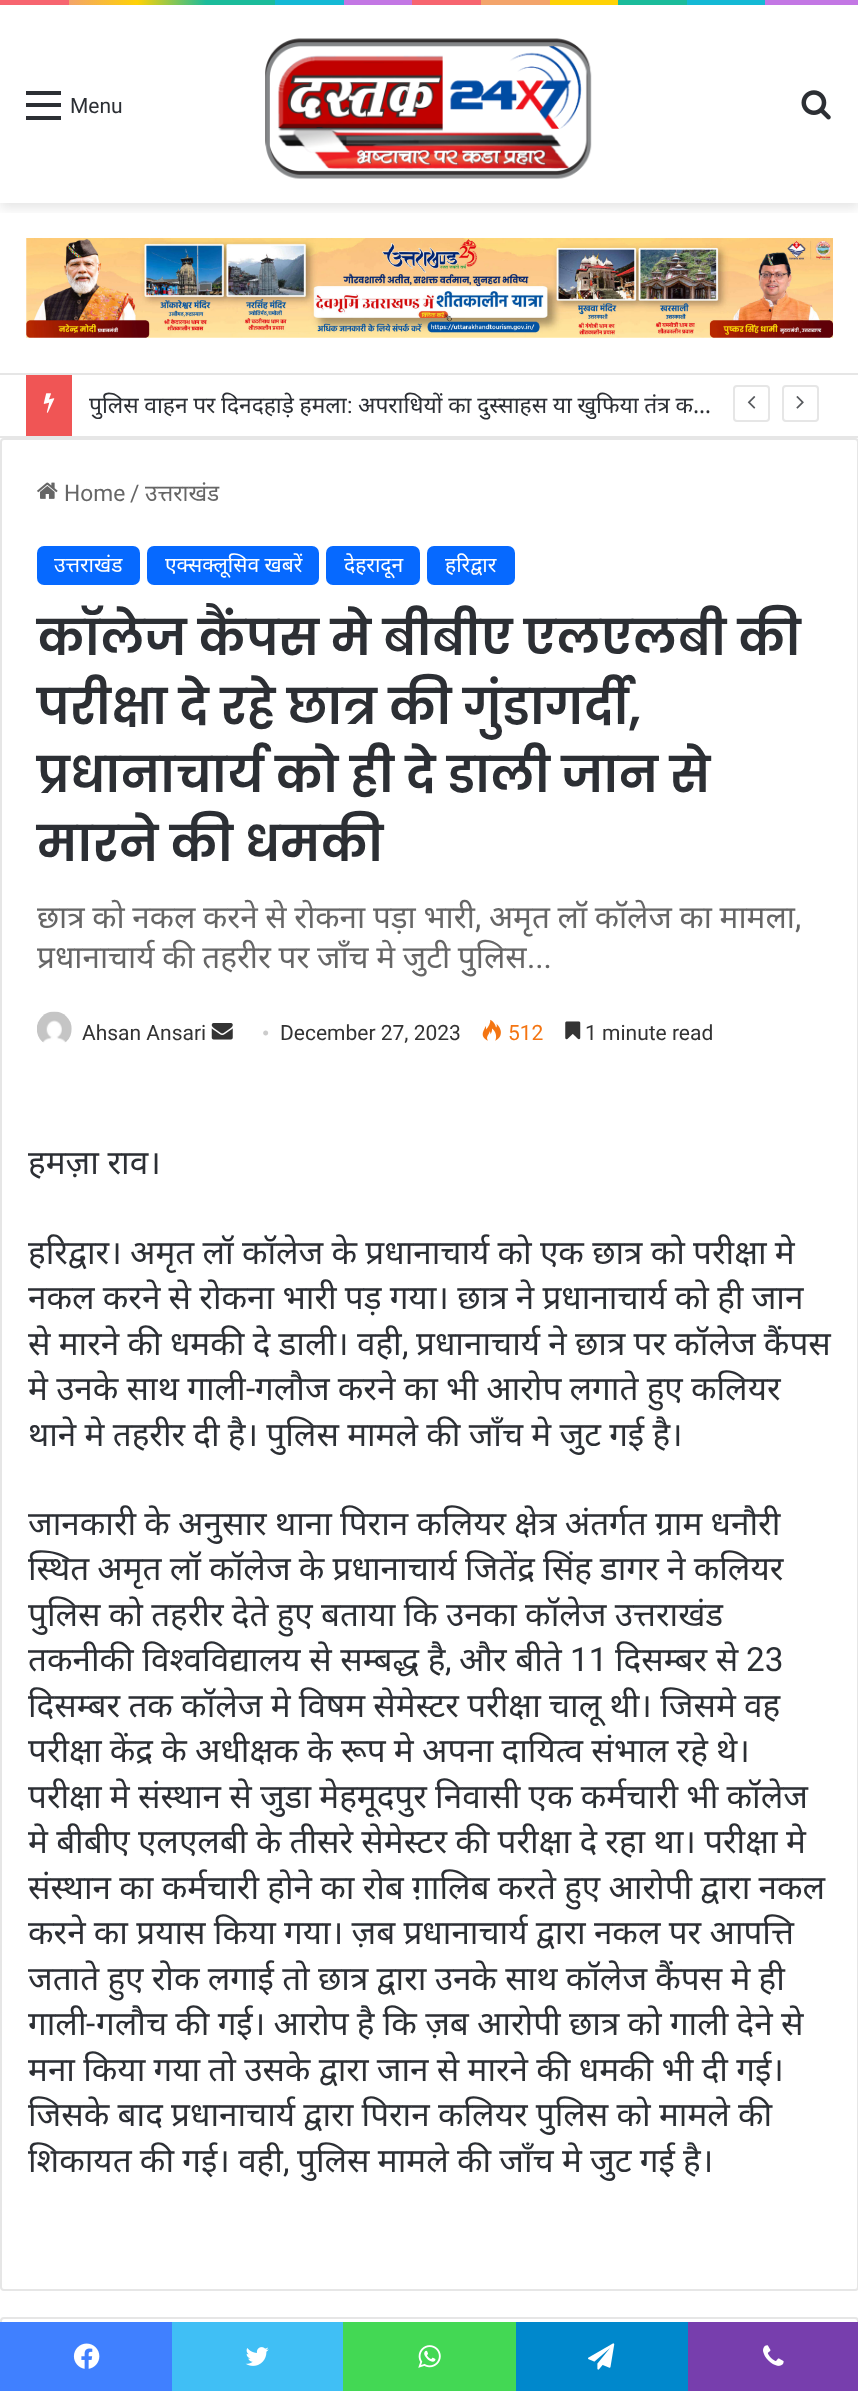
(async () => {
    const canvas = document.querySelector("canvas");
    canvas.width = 858;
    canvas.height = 2391;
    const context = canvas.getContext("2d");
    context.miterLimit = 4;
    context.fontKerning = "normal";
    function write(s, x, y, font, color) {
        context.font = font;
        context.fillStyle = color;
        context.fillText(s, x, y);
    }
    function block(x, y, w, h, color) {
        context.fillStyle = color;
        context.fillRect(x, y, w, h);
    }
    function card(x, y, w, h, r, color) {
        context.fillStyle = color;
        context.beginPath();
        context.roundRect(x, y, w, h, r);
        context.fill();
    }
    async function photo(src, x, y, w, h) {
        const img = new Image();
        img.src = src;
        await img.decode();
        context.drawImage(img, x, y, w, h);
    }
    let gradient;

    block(0, 0, 858, 2391, "rgb(255, 255, 255)");
    gradient = context.createLinearGradient(0, 2.6, 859, 2.6);
    gradient.addColorStop(0, "rgb(247, 101, 112)");
    gradient.addColorStop(0.08, "rgb(247, 101, 112)");
    gradient.addColorStop(0.08, "rgb(243, 164, 107)");
    gradient.addColorStop(0.16, "rgb(255, 210, 5)");
    gradient.addColorStop(0.24, "rgb(27, 188, 155)");
    gradient.addColorStop(0.32, "rgb(27, 188, 155)");
    gradient.addColorStop(0.32, "rgb(20, 185, 213)");
    gradient.addColorStop(0.4, "rgb(20, 185, 213)");
    gradient.addColorStop(0.4, "rgb(195, 119, 228)");
    gradient.addColorStop(0.48, "rgb(195, 119, 228)");
    gradient.addColorStop(0.48, "rgb(247, 101, 112)");
    gradient.addColorStop(0.56, "rgb(247, 101, 112)");
    gradient.addColorStop(0.56, "rgb(243, 164, 107)");
    gradient.addColorStop(0.64, "rgb(243, 164, 107)");
    gradient.addColorStop(0.64, "rgb(255, 210, 5)");
    gradient.addColorStop(0.72, "rgb(255, 210, 5)");
    gradient.addColorStop(0.72, "rgb(27, 188, 155)");
    gradient.addColorStop(0.8, "rgb(27, 188, 155)");
    gradient.addColorStop(0.8, "rgb(20, 185, 213)");
    gradient.addColorStop(0.89, "rgb(20, 185, 213)");
    gradient.addColorStop(0.89, "rgb(195, 119, 228)");
    gradient.addColorStop(1, "rgb(195, 119, 228)");
    context.fillStyle = gradient;
    context.fillRect(0, 0, 858, 5);
    context.save();
    context.beginPath();
    context.rect(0, 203, 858, 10);
    context.clip();
    context.fillStyle = "rgba(0, 0, 0, 0.1)";
    context.filter = "blur(6px)";
    context.beginPath();
    context.rect(0, 11, 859, 197);
    context.fill();
    context.filter = "none";
    context.restore();
    block(26, 103, 35, 4, "rgb(44, 47, 52)");
    block(26, 91, 35, 4, "rgb(44, 47, 52)");
    block(26, 116, 35, 4, "rgb(44, 47, 52)");
    write("Menu", 70, 113, "21px Roboto", "rgb(44, 47, 52)");
    await photo("media/1.png", 265, 38, 327, 141);
    await photo("media/2.png", 801, 90, 30, 30);
    await photo("media/3.png", 26, 238, 807, 100);
    block(0, 373, 858, 2, "rgb(230, 230, 230)");
    block(0, 436, 858, 2, "rgb(230, 230, 230)");
    block(26, 375, 46, 61, "rgb(240, 85, 85)");
    await photo("media/4.png", 43, 393, 12, 20);
    context.save();
    context.beginPath();
    context.rect(89, 375, 622, 61);
    context.clip();
    context.wordSpacing = "-0.25px";
    write("पुलिस वाहन पर दिनदहाड़े हमला", 89, 413, "22.75px Noto Sans", "rgb(44, 47, 52)");
    context.restore();
    write(":", 347, 413, "22.75px Roboto", "rgb(44, 47, 52)");
    context.wordSpacing = "-0.25px";
    write("अपराधियों का दुस्साहस या खुफिया तंत्र क…", 358, 413, "22.75px Noto Sans", "rgb(44, 47, 52)");
    context.beginPath();
    context.roundRect(734, 386, 35, 35, 3);
    context.strokeStyle = "rgb(230, 230, 230)";
    context.lineWidth = 2;
    context.stroke();
    await photo("media/5.png", 747, 396, 9, 13);
    context.beginPath();
    context.roundRect(783, 386, 35, 35, 3);
    context.stroke();
    await photo("media/6.png", 796, 396, 8, 13);
    context.beginPath();
    context.roundRect(1, 439, 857, 1851, 3);
    context.stroke();
    await photo("media/7.png", 37, 482, 21, 17);
    context.wordSpacing = "0px";
    write("Home", 64, 501, "22.75px Roboto", "rgb(102, 102, 102)");
    write("/", 130, 501, "22.75px Roboto", "rgb(102, 102, 102)");
    write("उत्तराखंड", 145, 501, "22.75px Noto Sans", "rgb(102, 102, 102)");
    card(37, 546, 103, 39, 7, "rgb(6, 105, 255)");
    write("उत्तराखंड", 54, 572, "21px Noto Sans", "rgb(255, 255, 255)");
    card(147, 546, 172, 39, 7, "rgb(6, 105, 255)");
    write("एक्सक्लूसिव खबरें", 165, 572, "21px Noto Sans", "rgb(255, 255, 255)");
    card(326, 546, 94, 39, 7, "rgb(6, 105, 255)");
    write("देहरादून", 344, 572, "21px Noto Sans", "rgb(255, 255, 255)");
    card(427, 546, 88, 39, 7, "rgb(6, 105, 255)");
    write("हरिद्वार", 445, 572, "21px Noto Sans", "rgb(255, 255, 255)");
    write("कॉलेज कैंपस मे बीबीए एलएलबी की", 37, 655, "600 49px Poppins", "rgb(44, 47, 52)");
    write("परीक्षा दे रहे छात्र की गुंडागर्दी,", 37, 724, "600 49px Poppins", "rgb(44, 47, 52)");
    write("प्रधानाचार्य को ही दे डाली जान से", 37, 792, "600 49px Poppins", "rgb(44, 47, 52)");
    write("मारने की धमकी", 37, 861, "600 49px Poppins", "rgb(44, 47, 52)");
    context.wordSpacing = "-0.5px";
    write("छात्र को नकल करने से रोकना पड़ा भारी", 37, 928, "31.5px Noto Sans", "rgb(102, 102, 102)");
    context.wordSpacing = "0px";
    write(",", 475, 928, "31.5px Roboto", "rgb(102, 102, 102)");
    context.wordSpacing = "-0.5px";
    write("अमृत लॉ कॉलेज का मामला", 489, 928, "31.5px Noto Sans", "rgb(102, 102, 102)");
    context.wordSpacing = "0px";
    write(",", 795, 928, "31.5px Roboto", "rgb(102, 102, 102)");
    context.wordSpacing = "-0.5px";
    write("प्रधानाचार्य की तहरीर पर जाँच मे जुटी पुलिस", 37, 968, "31.5px Noto Sans", "rgb(102, 102, 102)");
    context.wordSpacing = "0px";
    write("...", 527, 968, "31.5px Roboto", "rgb(102, 102, 102)");
    await photo("media/8.png", 37, 1011, 35, 32);
    write("Ahsan Ansari", 82, 1040, "21px Roboto", "rgb(51, 51, 51)");
    await photo("media/9.png", 211, 1023, 22, 17);
    write("•", 262, 1040, "21px Liberation Serif", "rgb(204, 204, 204)");
    write("December 27, 2023", 280, 1040, "21px Roboto", "rgb(51, 51, 51)");
    await photo("media/10.png", 482, 1019, 19, 22);
    write("512", 508, 1040, "21px Roboto", "rgb(244, 117, 18)");
    await photo("media/11.png", 565, 1021, 16, 19);
    write("1 minute read", 585, 1040, "21px Roboto", "rgb(51, 51, 51)");
    write("हमज़ा राव।", 28, 1174, "33.25px Noto Sans", "rgb(44, 47, 52)");
    write("हरिद्वार।", 28, 1264, "33.25px Noto Sans", "rgb(44, 47, 52)");
    context.wordSpacing = "-0.4px";
    write("अमृत लॉ कॉलेज के प्रधानाचार्य को एक छात्र को परीक्षा मे", 130, 1264, "33.25px Noto Sans", "rgb(44, 47, 52)");
    write("नकल करने से रोकना भारी पड़ गया। छात्र ने प्रधानाचार्य को ही जान", 28, 1309, "33.25px Noto Sans", "rgb(44, 47, 52)");
    write("से मारने की धमकी दे डाली। वही", 28, 1355, "33.25px Noto Sans", "rgb(44, 47, 52)");
    context.wordSpacing = "0px";
    write(",", 402, 1355, "33.25px Roboto", "rgb(44, 47, 52)");
    context.wordSpacing = "-0.4px";
    write("प्रधानाचार्य ने छात्र पर कॉलेज कैंपस", 416, 1355, "33.25px Noto Sans", "rgb(44, 47, 52)");
    write("मे उनके साथ गाली", 28, 1400, "33.25px Noto Sans", "rgb(44, 47, 52)");
    context.wordSpacing = "0px";
    write("-", 246, 1400, "33.25px Roboto", "rgb(44, 47, 52)");
    context.wordSpacing = "-0.4px";
    write("गलौज करने का भी आरोप लगाते हुए कलियर", 255, 1400, "33.25px Noto Sans", "rgb(44, 47, 52)");
    write("थाने मे तहरीर दी है। पुलिस मामले की जाँच मे जुट गई है।", 28, 1446, "33.25px Noto Sans", "rgb(44, 47, 52)");
    write("जानकारी के अनुसार थाना पिरान कलियर क्षेत्र अंतर्गत ग्राम धनौरी", 28, 1535, "33.25px Noto Sans", "rgb(44, 47, 52)");
    write("स्थित अमृत लॉ कॉलेज के प्रधानाचार्य जितेंद्र सिंह डागर ने कलियर", 28, 1580, "33.25px Noto Sans", "rgb(44, 47, 52)");
    write("पुलिस को तहरीर देते हुए बताया कि उनका कॉलेज उत्तराखंड", 28, 1626, "33.25px Noto Sans", "rgb(44, 47, 52)");
    context.wordSpacing = "0px";
    write("तकनीकी विश्वविद्यालय से सम्बद्ध है", 28, 1671, "33.25px Noto Sans", "rgb(44, 47, 52)");
    write(",", 445, 1671, "33.25px Roboto", "rgb(44, 47, 52)");
    write("और बीते", 459, 1671, "33.25px Noto Sans", "rgb(44, 47, 52)");
    write("11", 570, 1671, "33.25px Roboto", "rgb(44, 47, 52)");
    write("दिसम्बर से", 615, 1671, "33.25px Noto Sans", "rgb(44, 47, 52)");
    write("23", 746, 1671, "33.25px Roboto", "rgb(44, 47, 52)");
    context.wordSpacing = "-0.4px";
    write("दिसम्बर तक कॉलेज मे विषम सेमेस्टर परीक्षा चालू थी। जिसमे वह", 28, 1717, "33.25px Noto Sans", "rgb(44, 47, 52)");
    write("परीक्षा केंद्र के अधीक्षक के रूप मे अपना दायित्व संभाल रहे थे।", 28, 1762, "33.25px Noto Sans", "rgb(44, 47, 52)");
    write("परीक्षा मे संस्थान से जुडा मेहमूदपुर निवासी एक कर्मचारी भी कॉलेज", 28, 1808, "33.25px Noto Sans", "rgb(44, 47, 52)");
    write("मे बीबीए एलएलबी के तीसरे सेमेस्टर की परीक्षा दे रहा था। परीक्षा मे", 28, 1853, "33.25px Noto Sans", "rgb(44, 47, 52)");
    write("संस्थान का कर्मचारी होने का रोब ग़ालिब करते हुए आरोपी द्वारा नकल", 28, 1899, "33.25px Noto Sans", "rgb(44, 47, 52)");
    write("करने का प्रयास किया गया। ज़ब प्रधानाचार्य द्वारा नकल पर आपत्ति", 28, 1944, "33.25px Noto Sans", "rgb(44, 47, 52)");
    write("जताते हुए रोक लगाई तो छात्र द्वारा उनके साथ कॉलेज कैंपस मे ही", 28, 1990, "33.25px Noto Sans", "rgb(44, 47, 52)");
    context.wordSpacing = "0px";
    write("गाली", 28, 2035, "33.25px Noto Sans", "rgb(44, 47, 52)");
    write("-", 86, 2035, "33.25px Roboto", "rgb(44, 47, 52)");
    context.wordSpacing = "-0.4px";
    write("गलौच की गई। आरोप है कि ज़ब आरोपी छात्र को गाली देने से", 96, 2035, "33.25px Noto Sans", "rgb(44, 47, 52)");
    write("मना किया गया तो उसके द्वारा जान से मारने की धमकी भी दी गई।", 28, 2081, "33.25px Noto Sans", "rgb(44, 47, 52)");
    write("जिसके बाद प्रधानाचार्य द्वारा पिरान कलियर पुलिस को मामले की", 28, 2126, "33.25px Noto Sans", "rgb(44, 47, 52)");
    write("शिकायत की गई। वही", 28, 2172, "33.25px Noto Sans", "rgb(44, 47, 52)");
    context.wordSpacing = "0px";
    write(",", 283, 2172, "33.25px Roboto", "rgb(44, 47, 52)");
    context.wordSpacing = "-0.4px";
    write("पुलिस मामले की जाँच मे जुट गई है।", 297, 2172, "33.25px Noto Sans", "rgb(44, 47, 52)");
    context.beginPath();
    context.roundRect(1, 2318, 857, 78, 3);
    context.stroke();
    block(0, 2322, 172, 69, "rgb(64, 128, 255)");
    await photo("media/12.png", 73, 2343, 27, 26);
    block(172, 2322, 171, 69, "rgb(64, 191, 245)");
    await photo("media/13.png", 245, 2347, 24, 19);
    block(343, 2322, 173, 69, "rgb(67, 216, 84)");
    await photo("media/14.png", 418, 2345, 23, 23);
    block(516, 2322, 172, 69, "rgb(0, 136, 204)");
    await photo("media/15.png", 588, 2343, 27, 27);
    block(688, 2322, 170, 69, "rgb(119, 62, 173)");
    await photo("media/16.png", 763, 2345, 21, 21);
})();
